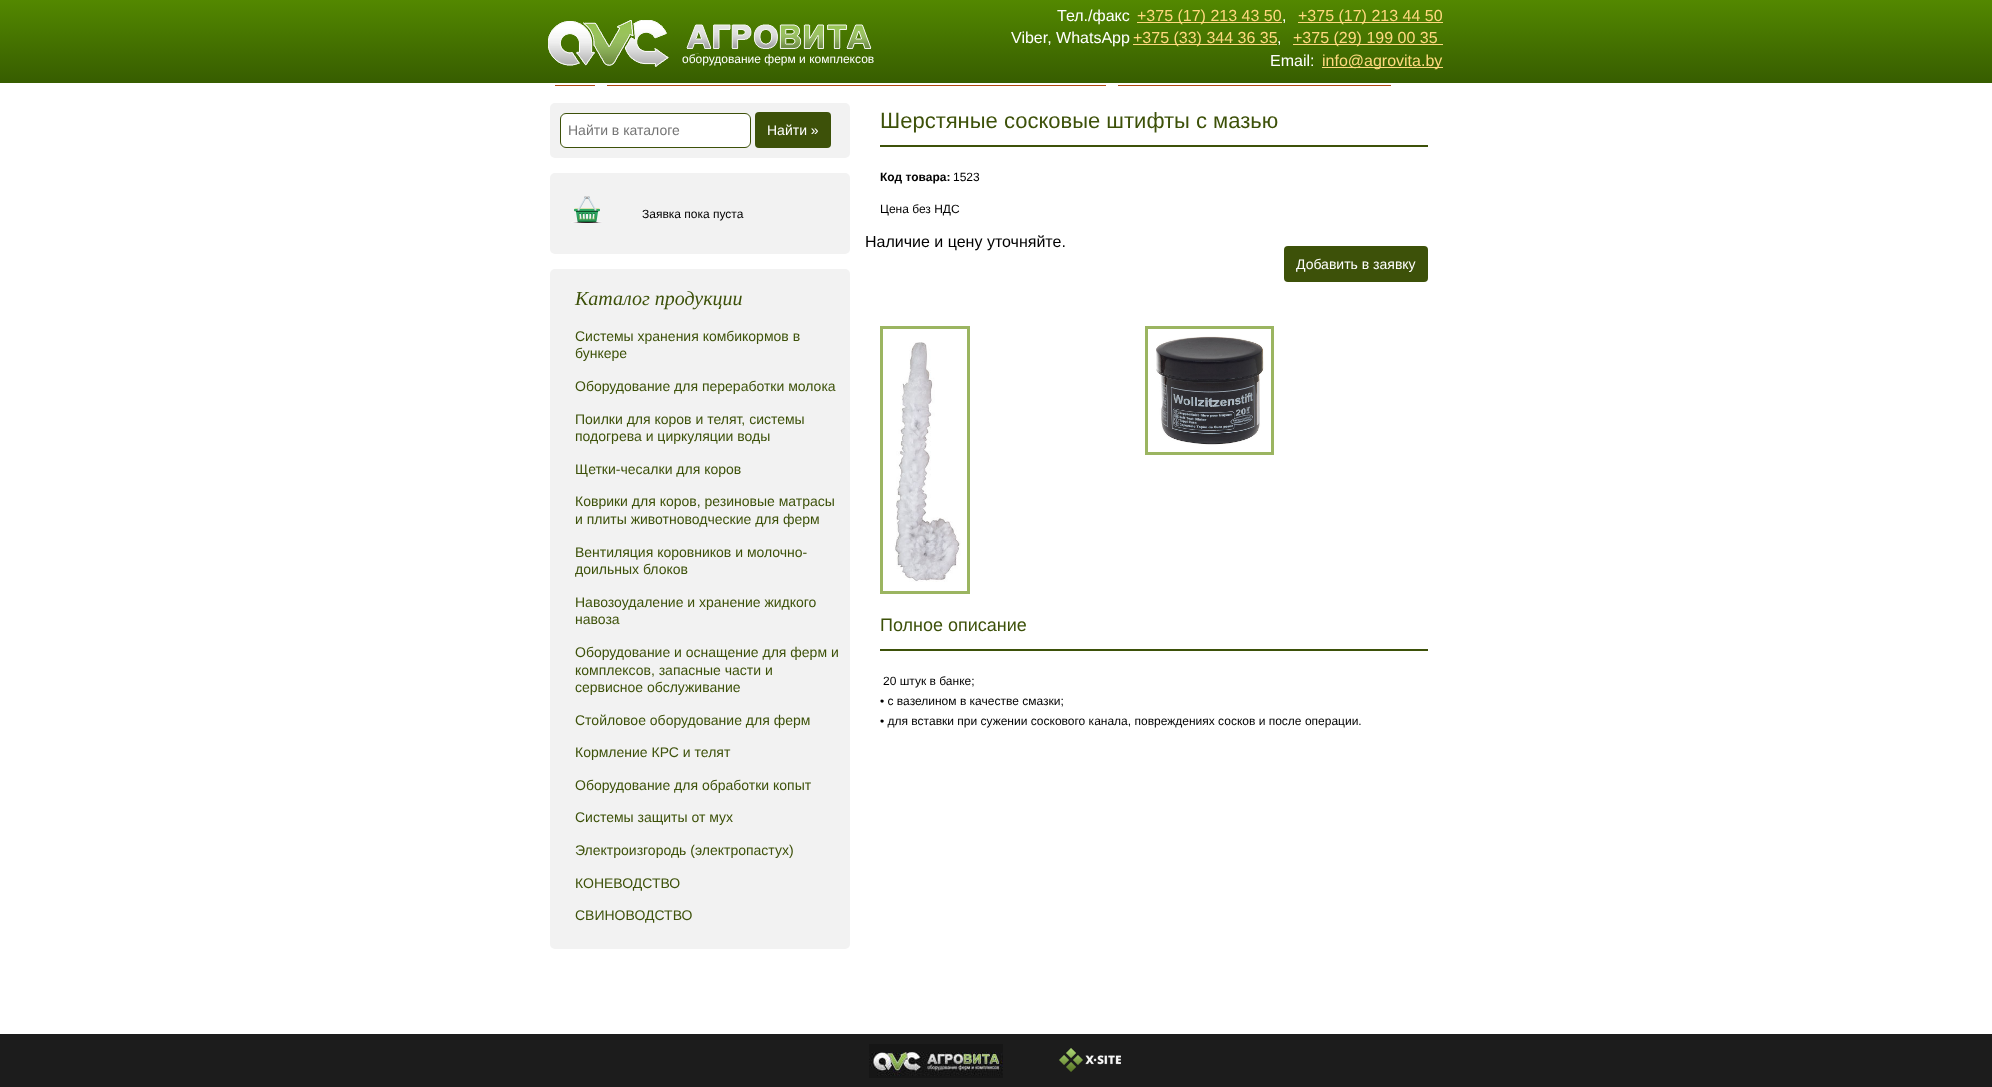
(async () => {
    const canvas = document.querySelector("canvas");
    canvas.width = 1992;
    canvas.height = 1087;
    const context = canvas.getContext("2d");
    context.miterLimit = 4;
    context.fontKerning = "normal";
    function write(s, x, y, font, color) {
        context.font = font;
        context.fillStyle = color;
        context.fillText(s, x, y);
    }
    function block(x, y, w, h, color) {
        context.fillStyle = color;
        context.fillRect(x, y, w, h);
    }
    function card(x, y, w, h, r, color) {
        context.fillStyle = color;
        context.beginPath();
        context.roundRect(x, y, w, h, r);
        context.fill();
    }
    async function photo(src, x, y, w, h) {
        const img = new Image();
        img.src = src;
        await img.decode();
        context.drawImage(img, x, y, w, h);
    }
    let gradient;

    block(0, 0, 1992, 1087, "rgb(255, 255, 255)");
    gradient = context.createLinearGradient(996, 83, 996, 0);
    gradient.addColorStop(0, "rgb(55, 93, 0)");
    gradient.addColorStop(1, "rgb(83, 136, 0)");
    context.fillStyle = gradient;
    context.fillRect(0, 0, 1992, 83);
    await photo("media/1.png", 548, 20, 324, 47);
    write("оборудование ферм и комплексов", 682, 63, "12px Liberation Sans", "rgb(255, 255, 255)");
    write("Тел./факс", 1057, 21, "16px Liberation Sans", "rgb(255, 255, 255)");
    block(1137, 22, 145, 1, "rgb(255, 217, 126)");
    write("+375 (17) 213 43 50", 1137, 21, "16px Liberation Sans", "rgb(255, 217, 126)");
    write(",", 1282, 21, "16px Liberation Sans", "rgb(255, 255, 255)");
    block(1298, 22, 145, 1, "rgb(255, 217, 126)");
    write("+375 (17) 213 44 50", 1298, 21, "16px Liberation Sans", "rgb(255, 217, 126)");
    write("Viber, WhatsApp", 1011, 43, "16px Liberation Sans", "rgb(255, 255, 255)");
    block(1133, 44, 144, 1, "rgb(255, 217, 126)");
    write("+375 (33) 344 36 35", 1133, 43, "16px Liberation Sans", "rgb(255, 217, 126)");
    write(",", 1277, 43, "16px Liberation Sans", "rgb(255, 255, 255)");
    block(1293, 44, 150, 1, "rgb(255, 217, 126)");
    write("+375 (29) 199 00 35", 1293, 43, "16px Liberation Sans", "rgb(255, 217, 126)");
    write("Email:", 1270, 66, "16px Liberation Sans", "rgb(255, 255, 255)");
    block(1322, 67, 121, 1, "rgb(255, 217, 126)");
    write("info@agrovita.by", 1322, 66, "16px Liberation Sans", "rgb(255, 217, 126)");
    block(555, 85, 40, 1, "rgb(175, 69, 12)");
    block(607, 85, 499, 1, "rgb(175, 69, 12)");
    block(1118, 85, 273, 1, "rgb(175, 69, 12)");
    card(550, 103, 300, 55, 5, "rgb(242, 242, 242)");
    context.fillStyle = "rgb(255, 255, 255)";
    context.beginPath();
    context.roundRect(560.5, 113.5, 190, 34, 5.5);
    context.fill();
    context.strokeStyle = "rgb(61, 81, 9)";
    context.stroke();
    write("Найти в каталоге", 568, 135, "14px Liberation Sans", "rgb(117, 117, 117)");
    card(755, 112, 76, 36, 4, "rgb(61, 81, 9)");
    write("Найти »", 767, 135, "14px Liberation Sans", "rgb(255, 255, 255)");
    card(550, 173, 300, 81, 5, "rgb(242, 242, 242)");
    await photo("media/2.png", 571, 196, 31, 27);
    write("Заявка пока пуста", 642, 218, "12px Liberation Sans", "rgb(0, 0, 0)");
    card(550, 269, 300, 680, 5, "rgb(242, 242, 242)");
    write("Каталог продукции", 575, 305, "italic 20px Liberation Serif", "rgb(61, 81, 9)");
    write("Системы хранения комбикормов в", 575, 341, "14px Liberation Sans", "rgb(61, 81, 9)");
    write("бункере", 575, 358, "14px Liberation Sans", "rgb(61, 81, 9)");
    write("Оборудование для переработки молока", 575, 391, "14px Liberation Sans", "rgb(61, 81, 9)");
    write("Поилки для коров и телят, системы", 575, 424, "14px Liberation Sans", "rgb(61, 81, 9)");
    write("подогрева и циркуляции воды", 575, 441, "14px Liberation Sans", "rgb(61, 81, 9)");
    write("Щетки-чесалки для коров", 575, 474, "14px Liberation Sans", "rgb(61, 81, 9)");
    write("Коврики для коров, резиновые матрасы", 575, 506, "14px Liberation Sans", "rgb(61, 81, 9)");
    write("и плиты животноводческие для ферм", 575, 524, "14px Liberation Sans", "rgb(61, 81, 9)");
    write("Вентиляция коровников и молочно-", 575, 557, "14px Liberation Sans", "rgb(61, 81, 9)");
    write("доильных блоков", 575, 574, "14px Liberation Sans", "rgb(61, 81, 9)");
    write("Навозоудаление и хранение жидкого", 575, 607, "14px Liberation Sans", "rgb(61, 81, 9)");
    write("навоза", 575, 624, "14px Liberation Sans", "rgb(61, 81, 9)");
    write("Оборудование и оснащение для ферм и", 575, 657, "14px Liberation Sans", "rgb(61, 81, 9)");
    write("комплексов, запасные части и", 575, 675, "14px Liberation Sans", "rgb(61, 81, 9)");
    write("сервисное обслуживание", 575, 692, "14px Liberation Sans", "rgb(61, 81, 9)");
    write("Стойловое оборудование для ферм", 575, 725, "14px Liberation Sans", "rgb(61, 81, 9)");
    write("Кормление КРС и телят", 575, 757, "14px Liberation Sans", "rgb(61, 81, 9)");
    write("Оборудование для обработки копыт", 575, 790, "14px Liberation Sans", "rgb(61, 81, 9)");
    write("Системы защиты от мух", 575, 822, "14px Liberation Sans", "rgb(61, 81, 9)");
    write("Электроизгородь (электропастух)", 575, 855, "14px Liberation Sans", "rgb(61, 81, 9)");
    write("КОНЕВОДСТВО", 575, 888, "14px Liberation Sans", "rgb(61, 81, 9)");
    write("СВИНОВОДСТВО", 575, 920, "14px Liberation Sans", "rgb(61, 81, 9)");
    block(880, 145, 548, 2, "rgb(61, 81, 9)");
    write("Шерстяные сосковые штифты с мазью", 880, 128, "22px Liberation Sans", "rgb(61, 81, 9)");
    write("Код товара:", 880, 181, "bold 12px Liberation Sans", "rgb(0, 0, 0)");
    write("1523", 953, 181, "12px Liberation Sans", "rgb(0, 0, 0)");
    write("Цена без НДС", 880, 213, "12px Liberation Sans", "rgb(0, 0, 0)");
    write("Наличие и цену уточняйте.", 865, 247, "16px Liberation Sans", "rgb(0, 0, 0)");
    card(1284, 246, 144, 36, 4, "rgb(61, 81, 9)");
    write("Добавить в заявку", 1296, 269, "14px Liberation Sans", "rgb(255, 255, 255)");
    context.strokeStyle = "rgb(155, 181, 97)";
    context.lineWidth = 3;
    context.strokeRect(881.5, 327.5, 87, 265);
    await photo("media/3.png", 894, 342, 67, 240);
    context.strokeRect(1146.5, 327.5, 126, 126);
    await photo("media/4.png", 1156, 336, 108, 109);
    block(880, 649, 548, 2, "rgb(61, 81, 9)");
    write("Полное описание", 880, 631, "18px Liberation Sans", "rgb(61, 81, 9)");
    write("20 штук в банке;", 883, 685, "12px Liberation Sans", "rgb(0, 0, 0)");
    write("• с вазелином в качестве смазки;", 880, 705, "12px Liberation Sans", "rgb(0, 0, 0)");
    write("• для вставки при сужении соскового канала, повреждениях сосков и после операции.", 880, 725, "12px Liberation Sans", "rgb(0, 0, 0)");
    block(0, 1034, 1992, 53, "rgb(28, 28, 28)");
    await photo("media/5.png", 869, 1044, 134, 34);
    await photo("media/6.png", 1059, 1048, 62, 24);
})();
